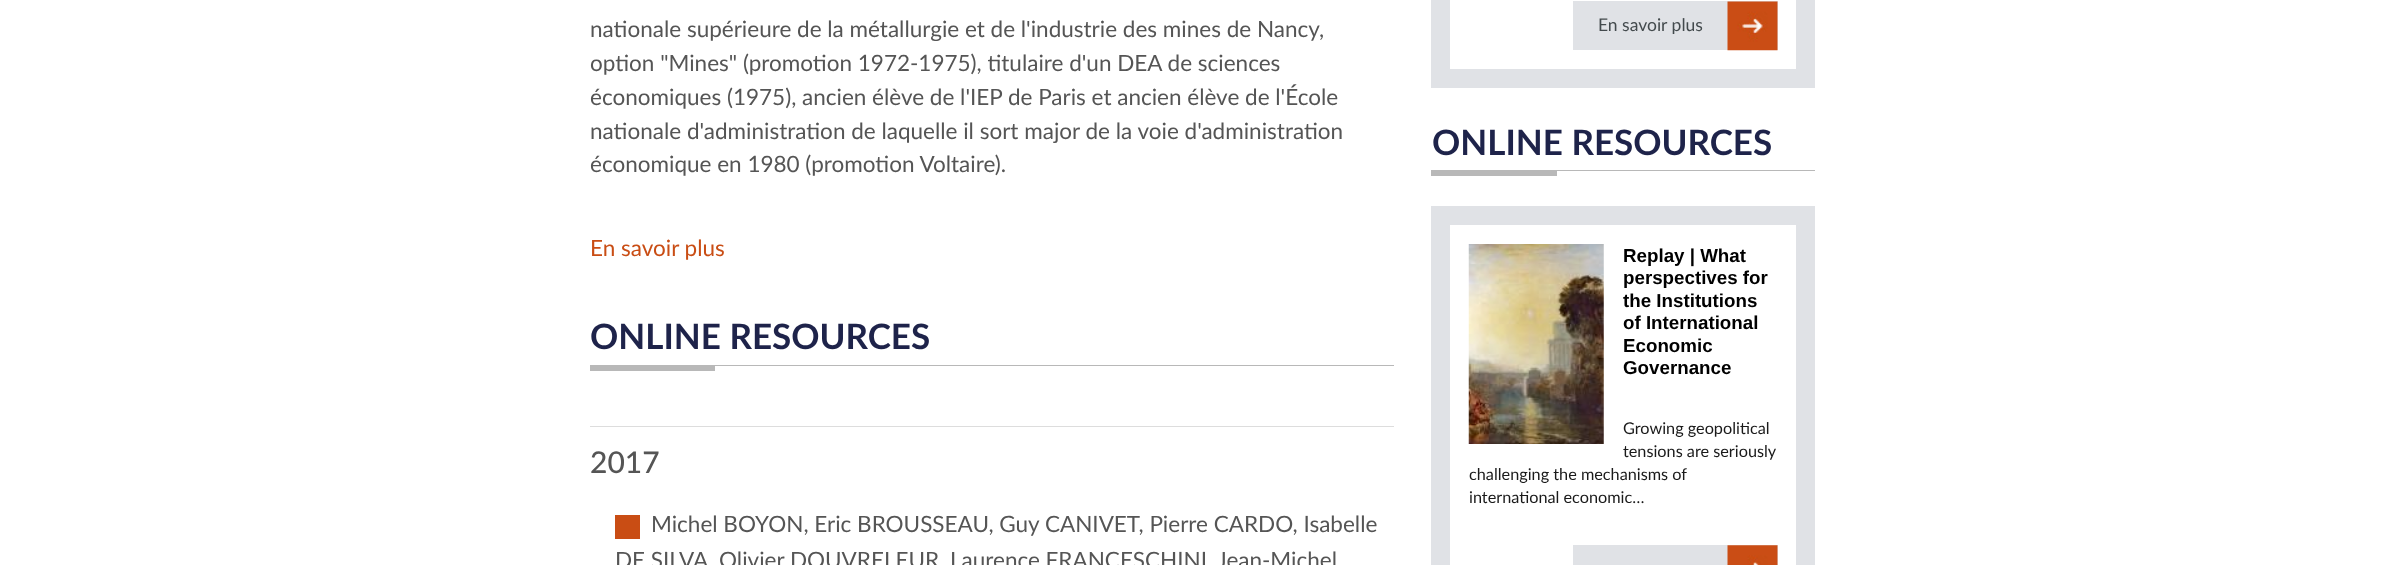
(async () => {
    const canvas = document.querySelector("canvas");
    canvas.width = 2405;
    canvas.height = 565;
    const context = canvas.getContext("2d");
    context.miterLimit = 4;
    context.fontKerning = "normal";
    function write(s, x, y, font, color) {
        context.font = font;
        context.fillStyle = color;
        context.fillText(s, x, y);
    }
    function block(x, y, w, h, color) {
        context.fillStyle = color;
        context.fillRect(x, y, w, h);
    }
    async function photo(src, x, y, w, h) {
        const img = new Image();
        img.src = src;
        await img.decode();
        context.drawImage(img, x, y, w, h);
    }

    block(0, 0, 2405, 565, "rgb(255, 255, 255)");
    write("nationale supérieure de la métallurgie et de l'industrie des mines de Nancy,", 590, 37, "22.5px Lato", "rgb(85, 85, 85)");
    write("option \"Mines\" (promotion 1972-1975), titulaire d'un DEA de sciences", 590, 71, "22.5px Lato", "rgb(85, 85, 85)");
    write("économiques (1975), ancien élève de l'IEP de Paris et ancien élève de l'École", 590, 105, "22.5px Lato", "rgb(85, 85, 85)");
    write("nationale d'administration de laquelle il sort major de la voie d'administration", 590, 139, "22.5px Lato", "rgb(85, 85, 85)");
    write("économique en 1980 (promotion Voltaire).", 590, 172, "22.5px Lato", "rgb(85, 85, 85)");
    write("En savoir plus", 590, 256, "22.5px Lato", "rgb(201, 77, 20)");
    write("ONLINE RESOURCES", 590, 349, "bold 35px Lato", "rgb(30, 35, 74)");
    block(590, 366, 125, 5, "rgb(184, 184, 184)");
    block(590, 365, 804, 1, "rgb(184, 184, 184)");
    block(590, 426, 804, 1, "rgb(221, 221, 221)");
    write("2017", 590, 473, "500 30px Lato", "rgb(85, 85, 85)");
    write("Michel BOYON, Eric BROUSSEAU, Guy CANIVET, Pierre CARDO, Isabelle", 651, 532, "22.5px Lato", "rgb(85, 85, 85)");
    block(615, 515, 25, 24, "rgb(201, 77, 20)");
    write("DE SILVA, Olivier DOUVRELEUR, Laurence FRANCESCHINI, Jean-Michel", 615, 568, "22.5px Lato", "rgb(85, 85, 85)");
    block(1431, 0, 384, 88, "rgb(224, 226, 230)");
    block(1450, 0, 346, 69, "rgb(255, 255, 255)");
    block(1573, 1, 205, 49, "rgb(224, 226, 230)");
    await photo("media/1.png", 1727, 1, 51, 50);
    write("En savoir plus", 1598, 31, "17.5px Lato", "rgb(67, 74, 77)");
    write("ONLINE RESOURCES", 1432, 155, "bold 35px Lato", "rgb(30, 35, 74)");
    block(1431, 171, 126, 5, "rgb(184, 184, 184)");
    block(1431, 170, 384, 1, "rgb(184, 184, 184)");
    block(1431, 206, 384, 359, "rgb(224, 226, 230)");
    block(1450, 225, 346, 340, "rgb(255, 255, 255)");
    await photo("media/2.png", 1468, 244, 136, 200);
    write("Replay | What", 1623, 262, "bold 18.75px Liberation Sans", "rgb(0, 0, 0)");
    write("perspectives for", 1623, 284, "bold 18.75px Liberation Sans", "rgb(0, 0, 0)");
    write("the Institutions", 1623, 307, "bold 18.75px Liberation Sans", "rgb(0, 0, 0)");
    write("of International", 1623, 329, "bold 18.75px Liberation Sans", "rgb(0, 0, 0)");
    write("Economic", 1623, 352, "bold 18.75px Liberation Sans", "rgb(0, 0, 0)");
    write("Governance", 1623, 374, "bold 18.75px Liberation Sans", "rgb(0, 0, 0)");
    write("Growing geopolitical", 1623, 434, "16.25px Lato", "rgb(26, 26, 26)");
    write("tensions are seriously", 1623, 457, "16.25px Lato", "rgb(26, 26, 26)");
    write("challenging the mechanisms of", 1469, 480, "16.25px Lato", "rgb(26, 26, 26)");
    write("international economic…", 1469, 503, "16.25px Lato", "rgb(26, 26, 26)");
    block(1573, 545, 205, 20, "rgb(224, 226, 230)");
    await photo("media/3.png", 1727, 545, 51, 20);
})();
